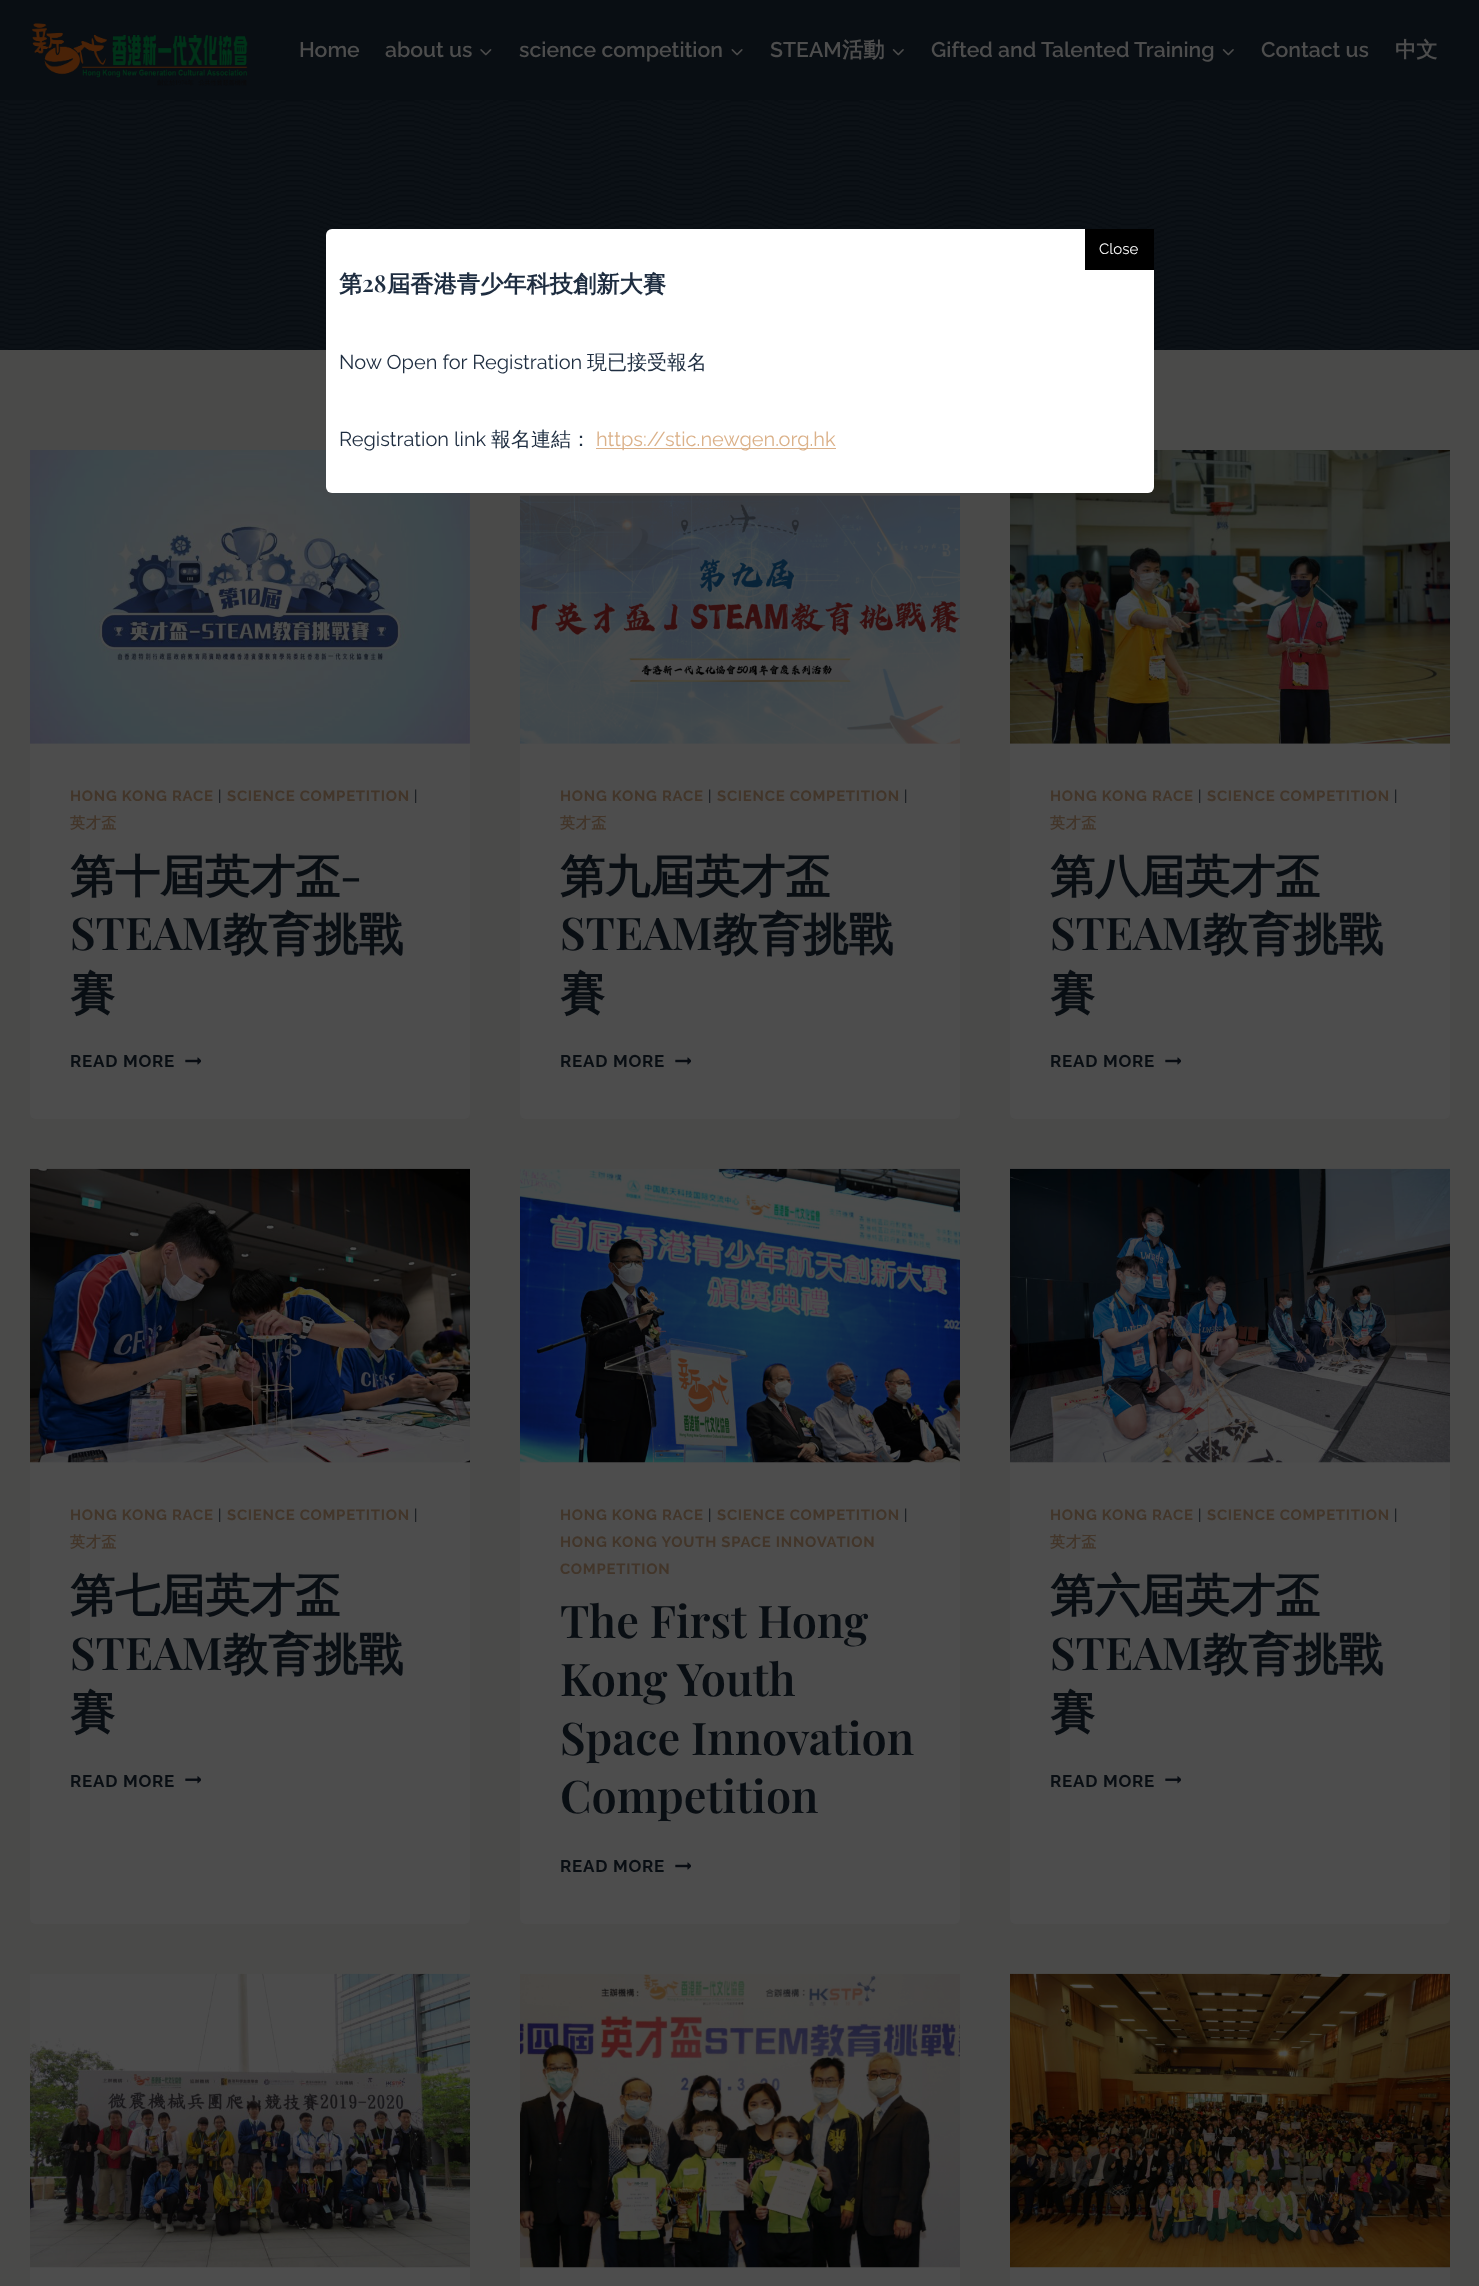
(async () => {
    const canvas = document.querySelector("canvas");
    canvas.width = 1479;
    canvas.height = 2286;
    const context = canvas.getContext("2d");
    context.miterLimit = 4;
    context.fontKerning = "normal";
    function write(s, x, y, font, color) {
        context.font = font;
        context.fillStyle = color;
        context.fillText(s, x, y);
    }
    function block(x, y, w, h, color) {
        context.fillStyle = color;
        context.fillRect(x, y, w, h);
    }
    function card(x, y, w, h, r, color) {
        context.fillStyle = color;
        context.beginPath();
        context.roundRect(x, y, w, h, r);
        context.fill();
    }
    async function photo(src, x, y, w, h) {
        const img = new Image();
        img.src = src;
        await img.decode();
        context.drawImage(img, x, y, w, h);
    }

    block(0, 0, 1479, 2286, "rgb(74, 74, 73)");
    block(0, 0, 1479, 350, "rgb(9, 14, 19)");
    await photo("media/1.png", 32, 23, 216, 63);
    write("Home", 299, 57, "600 21.25px Raleway", "rgb(77, 77, 77)");
    write("about us", 385, 57, "600 21.25px Raleway", "rgb(77, 77, 77)");
    await photo("media/2.png", 480, 49, 12, 7);
    write("science competition", 519, 57, "600 21.25px Raleway", "rgb(77, 77, 77)");
    await photo("media/3.png", 731, 49, 12, 7);
    write("STEAM", 770, 57, "600 21.25px Raleway", "rgb(77, 77, 77)");
    write("活動", 842, 57, "bold 21.25px WenQuanYi Zen Hei", "rgb(77, 77, 77)");
    await photo("media/4.png", 892, 49, 12, 7);
    write("Gifted and Talented Training", 931, 57, "600 21.25px Raleway", "rgb(77, 77, 77)");
    await photo("media/4.png", 1222, 49, 12, 7);
    write("Contact us", 1261, 57, "600 21.25px Raleway", "rgb(77, 77, 77)");
    write("中文", 1395, 57, "bold 21.25px WenQuanYi Zen Hei", "rgb(77, 77, 77)");
    await photo("media/5.png", 0, 100, 1479, 250);
    card(30, 450, 440, 669, 5, "rgb(77, 77, 77)");
    await photo("media/6.png", 30, 450, 440, 294);
    context.letterSpacing = "0.75px";
    write("HONG KONG RACE", 70, 801, "bold 14.9px Raleway", "rgb(66, 53, 41)");
    write("|", 218, 801, "14.9px Raleway", "rgb(9, 14, 19)");
    write("SCIENCE COMPETITION", 227, 801, "bold 14.9px Raleway", "rgb(66, 53, 41)");
    write("|", 414, 801, "14.9px Raleway", "rgb(9, 14, 19)");
    write("英才盃", 70, 828, "bold 14.9px WenQuanYi Zen Hei", "rgb(66, 53, 41)");
    context.letterSpacing = "0px";
    write("第十屆英才盃", 70, 892, "bold 45px WenQuanYi Zen Hei", "rgb(9, 14, 19)");
    write("-", 340, 892, "600 45px Playfair Display", "rgb(9, 14, 19)");
    write("STEAM", 70, 950, "600 45px Playfair Display", "rgb(9, 14, 19)");
    write("教育挑戰", 223, 950, "bold 45px WenQuanYi Zen Hei", "rgb(9, 14, 19)");
    write("賽", 70, 1009, "bold 45px WenQuanYi Zen Hei", "rgb(9, 14, 19)");
    context.letterSpacing = "0.75px";
    write("READ MORE", 70, 1067, "bold 17px Raleway", "rgb(9, 14, 19)");
    await photo("media/7.png", 185, 1057, 16, 8);
    card(520, 450, 440, 669, 5, "rgb(77, 77, 77)");
    await photo("media/8.png", 520, 493, 440, 251);
    write("HONG KONG RACE", 560, 801, "bold 14.9px Raleway", "rgb(66, 53, 41)");
    write("|", 708, 801, "14.9px Raleway", "rgb(9, 14, 19)");
    write("SCIENCE COMPETITION", 717, 801, "bold 14.9px Raleway", "rgb(66, 53, 41)");
    write("|", 904, 801, "14.9px Raleway", "rgb(9, 14, 19)");
    write("英才盃", 560, 828, "bold 14.9px WenQuanYi Zen Hei", "rgb(66, 53, 41)");
    context.letterSpacing = "0px";
    write("第九屆英才盃", 560, 892, "bold 45px WenQuanYi Zen Hei", "rgb(9, 14, 19)");
    write("STEAM", 560, 950, "600 45px Playfair Display", "rgb(9, 14, 19)");
    write("教育挑戰", 713, 950, "bold 45px WenQuanYi Zen Hei", "rgb(9, 14, 19)");
    write("賽", 560, 1009, "bold 45px WenQuanYi Zen Hei", "rgb(9, 14, 19)");
    context.letterSpacing = "0.75px";
    write("READ MORE", 560, 1067, "bold 17px Raleway", "rgb(9, 14, 19)");
    await photo("media/7.png", 675, 1057, 16, 8);
    card(1010, 450, 440, 669, 5, "rgb(77, 77, 77)");
    await photo("media/9.png", 1010, 450, 440, 294);
    write("HONG KONG RACE", 1050, 801, "bold 14.9px Raleway", "rgb(66, 53, 41)");
    write("|", 1198, 801, "14.9px Raleway", "rgb(9, 14, 19)");
    write("SCIENCE COMPETITION", 1207, 801, "bold 14.9px Raleway", "rgb(66, 53, 41)");
    write("|", 1394, 801, "14.9px Raleway", "rgb(9, 14, 19)");
    write("英才盃", 1050, 828, "bold 14.9px WenQuanYi Zen Hei", "rgb(66, 53, 41)");
    context.letterSpacing = "0px";
    write("第八屆英才盃", 1050, 892, "bold 45px WenQuanYi Zen Hei", "rgb(9, 14, 19)");
    write("STEAM", 1050, 950, "600 45px Playfair Display", "rgb(9, 14, 19)");
    write("教育挑戰", 1203, 950, "bold 45px WenQuanYi Zen Hei", "rgb(9, 14, 19)");
    write("賽", 1050, 1009, "bold 45px WenQuanYi Zen Hei", "rgb(9, 14, 19)");
    context.letterSpacing = "0.75px";
    write("READ MORE", 1050, 1067, "bold 17px Raleway", "rgb(9, 14, 19)");
    await photo("media/7.png", 1165, 1057, 16, 8);
    card(30, 1169, 440, 755, 5, "rgb(77, 77, 77)");
    await photo("media/10.png", 30, 1168, 440, 295);
    write("HONG KONG RACE", 70, 1520, "bold 14.9px Raleway", "rgb(66, 53, 41)");
    write("|", 218, 1520, "14.9px Raleway", "rgb(9, 14, 19)");
    write("SCIENCE COMPETITION", 227, 1520, "bold 14.9px Raleway", "rgb(66, 53, 41)");
    write("|", 414, 1520, "14.9px Raleway", "rgb(9, 14, 19)");
    write("英才盃", 70, 1547, "bold 14.9px WenQuanYi Zen Hei", "rgb(66, 53, 41)");
    context.letterSpacing = "0px";
    write("第七屆英才盃", 70, 1611, "bold 45px WenQuanYi Zen Hei", "rgb(9, 14, 19)");
    write("STEAM", 70, 1670, "600 45px Playfair Display", "rgb(9, 14, 19)");
    write("教育挑戰", 223, 1670, "bold 45px WenQuanYi Zen Hei", "rgb(9, 14, 19)");
    write("賽", 70, 1728, "bold 45px WenQuanYi Zen Hei", "rgb(9, 14, 19)");
    context.letterSpacing = "0.75px";
    write("READ MORE", 70, 1787, "bold 17px Raleway", "rgb(9, 14, 19)");
    await photo("media/11.png", 185, 1776, 16, 8);
    card(520, 1169, 440, 755, 5, "rgb(77, 77, 77)");
    await photo("media/12.png", 520, 1168, 440, 295);
    write("HONG KONG RACE", 560, 1520, "bold 14.9px Raleway", "rgb(66, 53, 41)");
    write("|", 708, 1520, "14.9px Raleway", "rgb(9, 14, 19)");
    write("SCIENCE COMPETITION", 717, 1520, "bold 14.9px Raleway", "rgb(66, 53, 41)");
    write("|", 904, 1520, "14.9px Raleway", "rgb(9, 14, 19)");
    write("HONG KONG YOUTH SPACE INNOVATION", 560, 1547, "bold 14.9px Raleway", "rgb(66, 53, 41)");
    write("COMPETITION", 560, 1574, "bold 14.9px Raleway", "rgb(66, 53, 41)");
    context.letterSpacing = "0px";
    write("The First Hong", 560, 1638, "600 45px Playfair Display", "rgb(9, 14, 19)");
    write("Kong Youth", 560, 1696, "600 45px Playfair Display", "rgb(9, 14, 19)");
    write("Space Innovation", 560, 1755, "600 45px Playfair Display", "rgb(9, 14, 19)");
    write("Competition", 560, 1813, "600 45px Playfair Display", "rgb(9, 14, 19)");
    context.letterSpacing = "0.75px";
    write("READ MORE", 560, 1872, "bold 17px Raleway", "rgb(9, 14, 19)");
    await photo("media/7.png", 675, 1862, 16, 8);
    card(1010, 1169, 440, 755, 5, "rgb(77, 77, 77)");
    await photo("media/13.png", 1010, 1168, 440, 295);
    write("HONG KONG RACE", 1050, 1520, "bold 14.9px Raleway", "rgb(66, 53, 41)");
    write("|", 1198, 1520, "14.9px Raleway", "rgb(9, 14, 19)");
    write("SCIENCE COMPETITION", 1207, 1520, "bold 14.9px Raleway", "rgb(66, 53, 41)");
    write("|", 1394, 1520, "14.9px Raleway", "rgb(9, 14, 19)");
    write("英才盃", 1050, 1547, "bold 14.9px WenQuanYi Zen Hei", "rgb(66, 53, 41)");
    context.letterSpacing = "0px";
    write("第六屆英才盃", 1050, 1611, "bold 45px WenQuanYi Zen Hei", "rgb(9, 14, 19)");
    write("STEAM", 1050, 1670, "600 45px Playfair Display", "rgb(9, 14, 19)");
    write("教育挑戰", 1203, 1670, "bold 45px WenQuanYi Zen Hei", "rgb(9, 14, 19)");
    write("賽", 1050, 1728, "bold 45px WenQuanYi Zen Hei", "rgb(9, 14, 19)");
    context.letterSpacing = "0.75px";
    write("READ MORE", 1050, 1787, "bold 17px Raleway", "rgb(9, 14, 19)");
    await photo("media/11.png", 1165, 1776, 16, 8);
    block(30, 2267, 440, 19, "rgb(77, 77, 77)");
    await photo("media/14.png", 30, 1973, 440, 295);
    block(520, 2267, 440, 19, "rgb(77, 77, 77)");
    await photo("media/15.png", 520, 1974, 440, 294);
    block(1010, 2267, 440, 19, "rgb(77, 77, 77)");
    await photo("media/16.png", 1010, 1973, 440, 295);
    card(326, 229, 828, 264, 6, "rgb(255, 255, 255)");
    block(1085, 229, 69, 41, "rgb(0, 0, 0)");
    context.letterSpacing = "0px";
    write("Close", 1099, 254, "15px Raleway", "rgb(255, 255, 255)");
    write("第", 339, 292, "bold 23.25px WenQuanYi Zen Hei", "rgb(30, 45, 64)");
    write("28", 362, 292, "600 23.25px Playfair Display", "rgb(30, 45, 64)");
    write("屆香港青少年科技創新大賽", 387, 292, "bold 23.25px WenQuanYi Zen Hei", "rgb(30, 45, 64)");
    write("Now Open for Registration", 339, 369, "20px Raleway", "rgb(30, 45, 64)");
    write("現已接受報名", 587, 369, "500 20px WenQuanYi Zen Hei", "rgb(30, 45, 64)");
    write("Registration link", 339, 446, "20px Raleway", "rgb(30, 45, 64)");
    write("報名連結：", 491, 446, "500 20px WenQuanYi Zen Hei", "rgb(30, 45, 64)");
    block(596, 448, 240, 1, "rgb(219, 177, 137)");
    write("https://stic.newgen.org.hk", 596, 446, "20px Raleway", "rgb(219, 177, 137)");
})();
